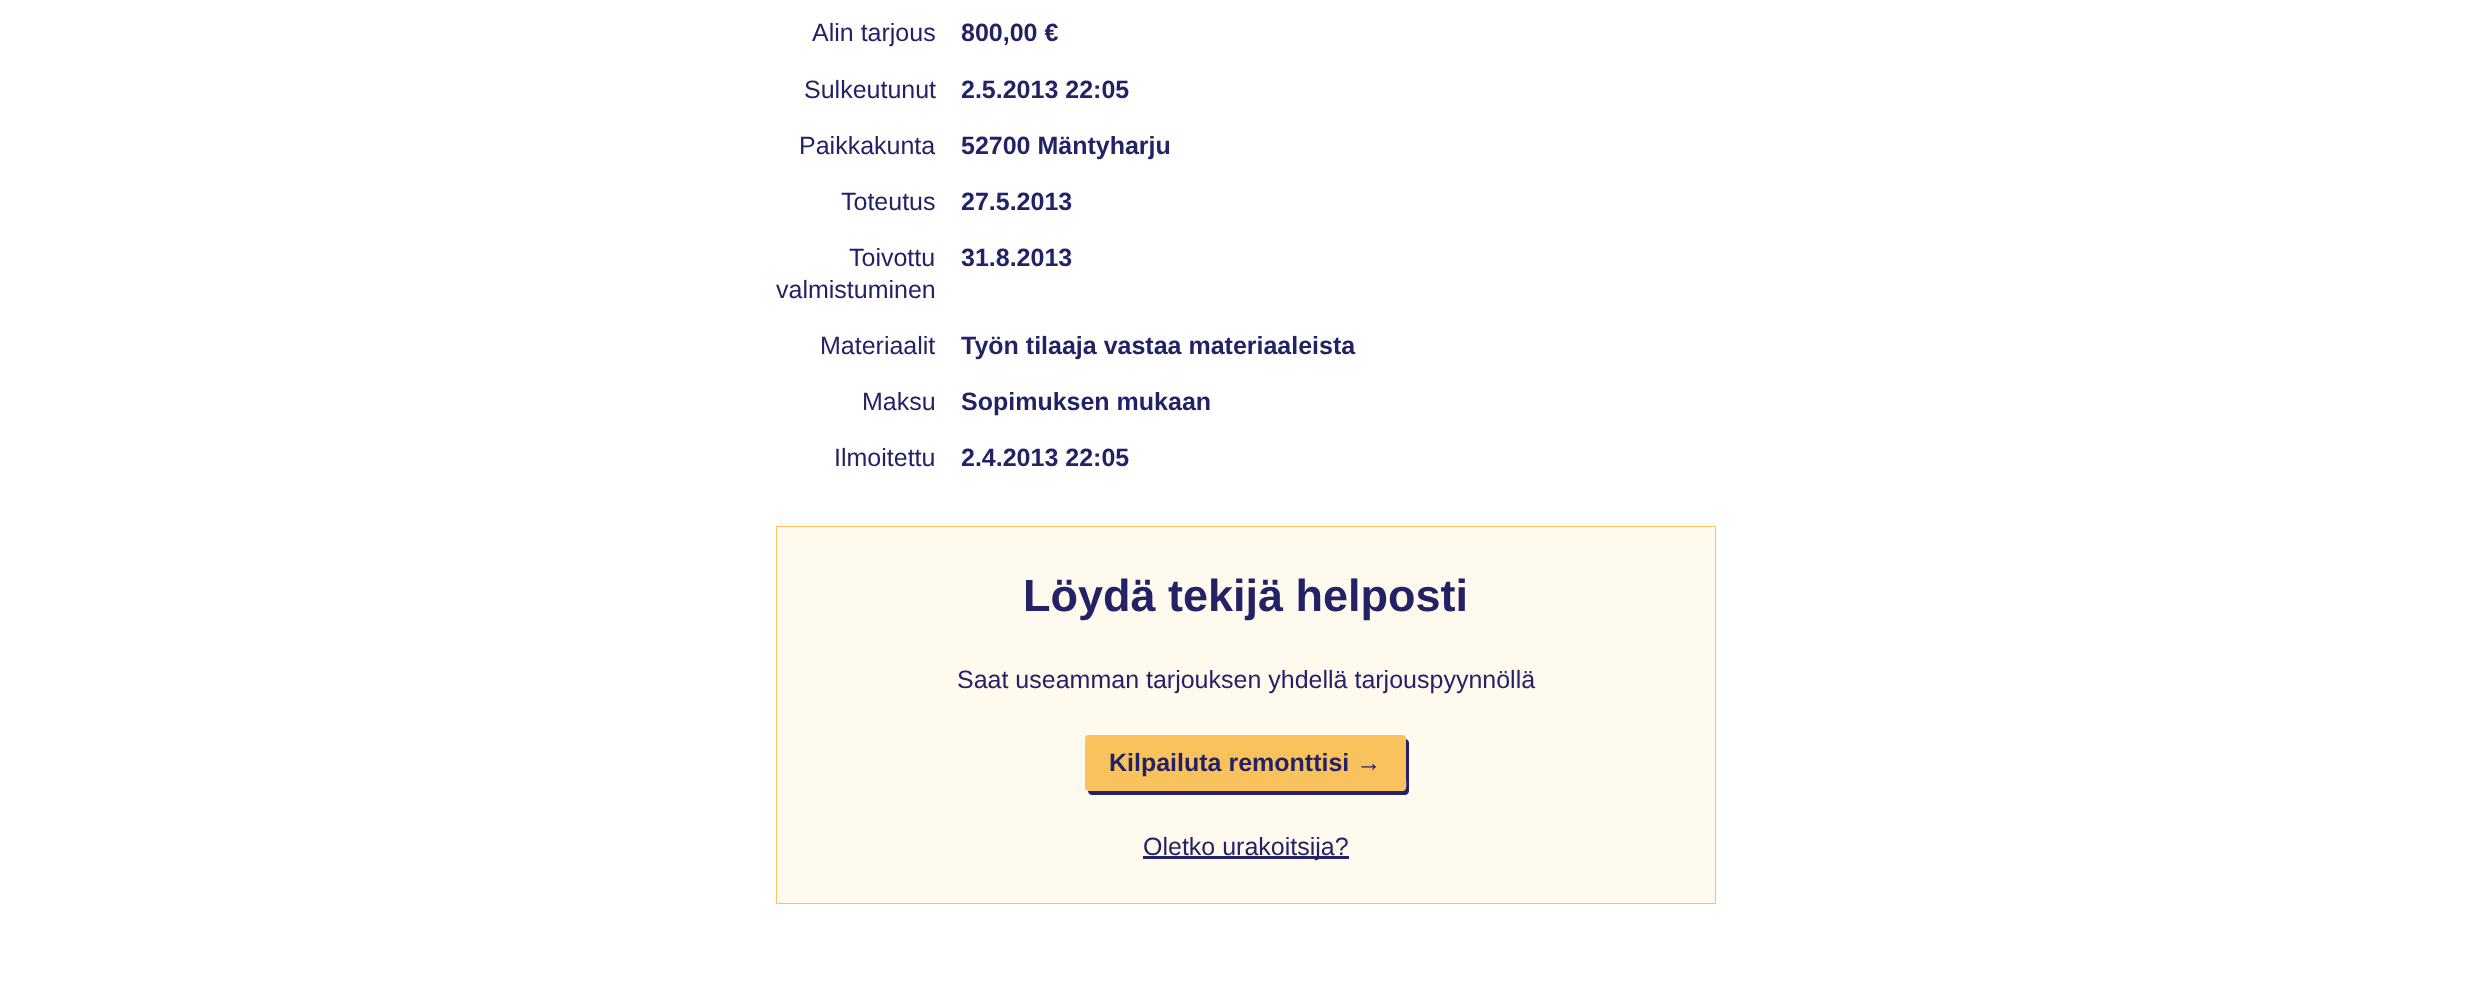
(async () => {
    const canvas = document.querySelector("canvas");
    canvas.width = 2491;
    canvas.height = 1003;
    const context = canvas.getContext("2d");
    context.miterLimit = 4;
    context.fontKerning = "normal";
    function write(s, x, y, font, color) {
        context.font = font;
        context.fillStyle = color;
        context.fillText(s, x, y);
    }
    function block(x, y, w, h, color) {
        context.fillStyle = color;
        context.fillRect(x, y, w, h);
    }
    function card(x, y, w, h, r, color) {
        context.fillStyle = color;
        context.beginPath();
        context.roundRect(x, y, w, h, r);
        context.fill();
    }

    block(0, 0, 2491, 1003, "rgb(255, 255, 255)");
    write("Alin tarjous", 812, 41, "25px Liberation Sans", "rgb(36, 34, 103)");
    write("800,00 €", 961, 41, "bold 25px Liberation Sans", "rgb(36, 34, 103)");
    write("Sulkeutunut", 804, 98, "25px Liberation Sans", "rgb(36, 34, 103)");
    write("2.5.2013 22:05", 961, 98, "bold 25px Liberation Sans", "rgb(36, 34, 103)");
    write("Paikkakunta", 799, 154, "25px Liberation Sans", "rgb(36, 34, 103)");
    write("52700 Mäntyharju", 961, 154, "bold 25px Liberation Sans", "rgb(36, 34, 103)");
    write("Toteutus", 841, 210, "25px Liberation Sans", "rgb(36, 34, 103)");
    write("27.5.2013", 961, 210, "bold 25px Liberation Sans", "rgb(36, 34, 103)");
    write("Toivottu", 849, 266, "25px Liberation Sans", "rgb(36, 34, 103)");
    write("valmistuminen", 776, 298, "25px Liberation Sans", "rgb(36, 34, 103)");
    write("31.8.2013", 961, 266, "bold 25px Liberation Sans", "rgb(36, 34, 103)");
    write("Materiaalit", 820, 354, "25px Liberation Sans", "rgb(36, 34, 103)");
    write("Työn tilaaja vastaa materiaaleista", 961, 354, "bold 25px Liberation Sans", "rgb(36, 34, 103)");
    write("Maksu", 862, 410, "25px Liberation Sans", "rgb(36, 34, 103)");
    write("Sopimuksen mukaan", 961, 410, "bold 25px Liberation Sans", "rgb(36, 34, 103)");
    write("Ilmoitettu", 834, 466, "25px Liberation Sans", "rgb(36, 34, 103)");
    write("2.4.2013 22:05", 961, 466, "bold 25px Liberation Sans", "rgb(36, 34, 103)");
    context.fillStyle = "rgb(255, 249, 238)";
    context.beginPath();
    context.rect(776.5, 526.5, 939, 377);
    context.fill();
    context.strokeStyle = "rgb(250, 194, 92)";
    context.stroke();
    write("Löydä tekijä helposti", 1023, 611, "bold 45px Liberation Sans", "rgb(36, 34, 103)");
    write("Saat useamman tarjouksen yhdellä tarjouspyynnöllä", 957, 688, "25px Liberation Sans", "rgb(36, 34, 103)");
    context.beginPath();
    context.moveTo(1088, 791);
    context.bezierCurveTo(1088, 793, 1090, 795, 1092, 795);
    context.lineTo(1405, 795);
    context.bezierCurveTo(1407, 795, 1409, 793, 1409, 791);
    context.lineTo(1409, 743);
    context.bezierCurveTo(1409, 741, 1408, 740, 1406, 739);
    context.lineTo(1406, 779);
    context.bezierCurveTo(1406, 782, 1408, 791, 1402, 791);
    context.closePath();
    context.fill();
    card(1085, 735, 321, 56, 4, "rgb(250, 194, 92)");
    write("Kilpailuta remonttisi →", 1109, 771, "bold 25px Liberation Sans", "rgb(36, 34, 103)");
    block(1143, 856, 206, 3, "rgb(36, 34, 103)");
    write("Oletko urakoitsija?", 1143, 855, "25px Liberation Sans", "rgb(36, 34, 103)");
})();
